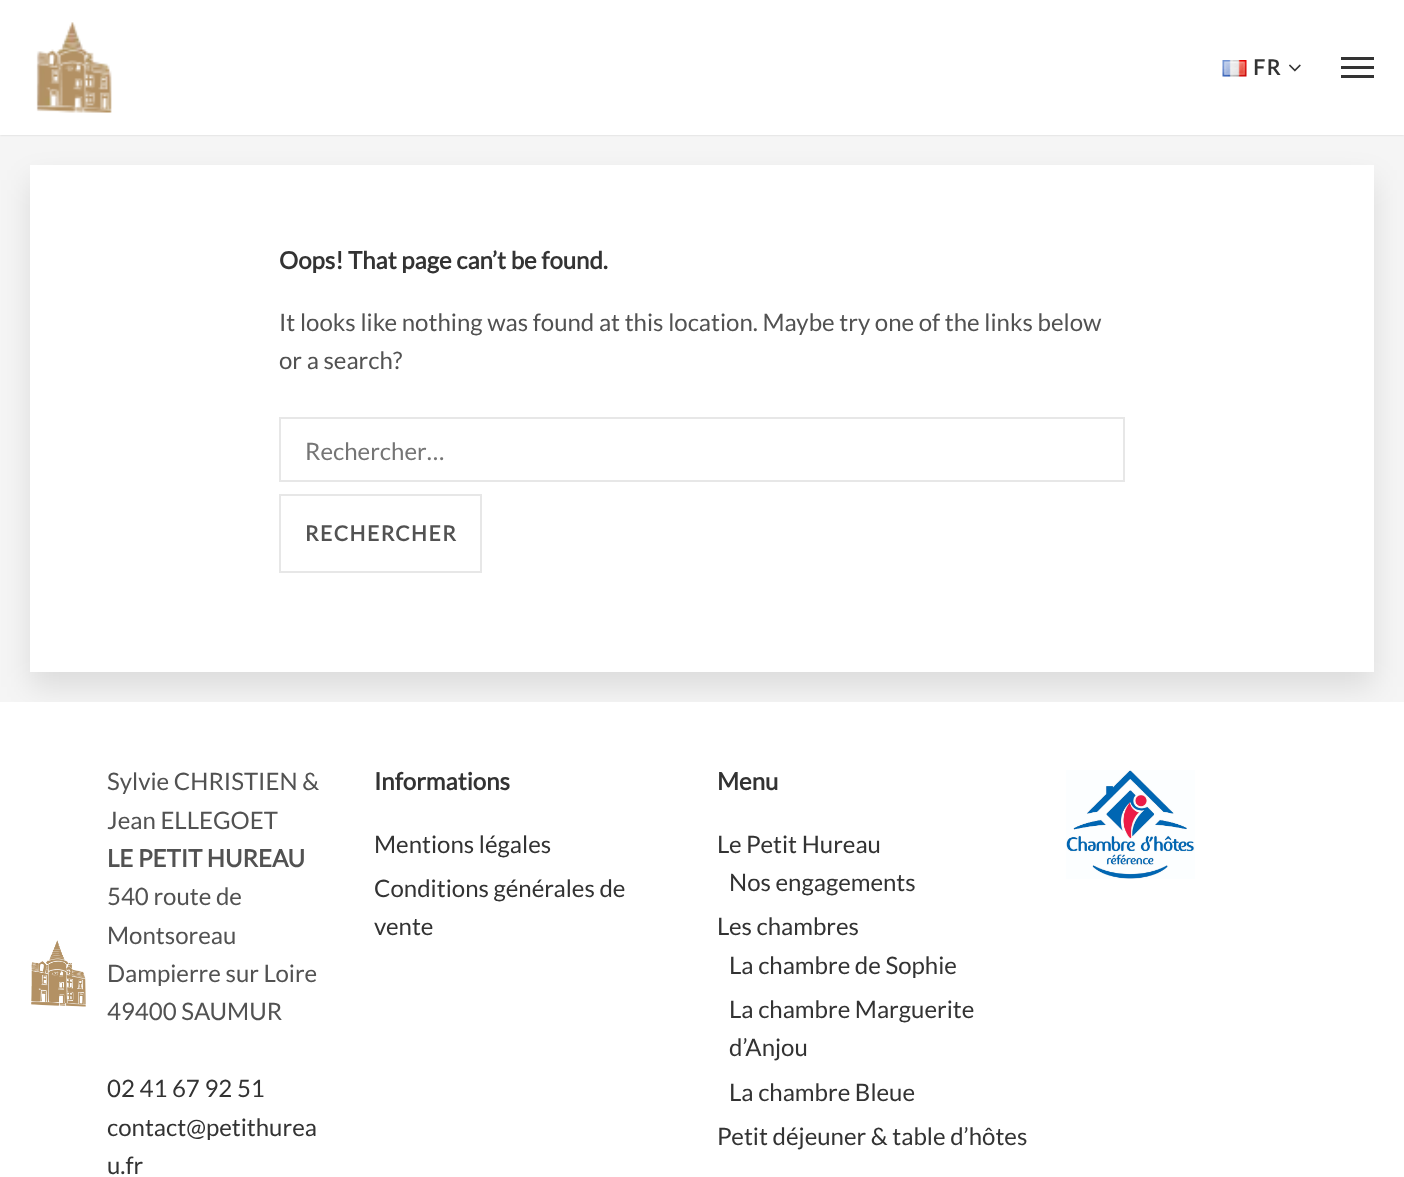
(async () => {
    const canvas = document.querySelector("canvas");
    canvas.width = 1404;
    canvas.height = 1177;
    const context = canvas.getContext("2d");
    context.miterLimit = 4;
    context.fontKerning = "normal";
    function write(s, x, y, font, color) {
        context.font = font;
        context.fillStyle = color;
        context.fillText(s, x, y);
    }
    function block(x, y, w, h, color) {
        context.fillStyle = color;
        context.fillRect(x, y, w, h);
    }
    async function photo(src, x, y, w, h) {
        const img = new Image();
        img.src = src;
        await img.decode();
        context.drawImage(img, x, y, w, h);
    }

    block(0, 0, 1404, 1177, "rgb(245, 245, 245)");
    context.fillStyle = "rgba(0, 0, 0, 0.15)";
    context.filter = "blur(1px)";
    context.beginPath();
    context.rect(0, 0, 1404, 135);
    context.fill();
    context.filter = "none";
    context.fillStyle = "rgba(0, 0, 0, 0.1)";
    context.filter = "blur(15px)";
    context.beginPath();
    context.rect(30, 180, 1344, 507);
    context.fill();
    context.filter = "none";
    block(0, 0, 1404, 135, "rgb(255, 255, 255)");
    await photo("media/1.png", 36, 22, 76, 91);
    await photo("media/2.png", 1222, 60, 25, 17);
    context.letterSpacing = "1.5px";
    write("FR", 1253, 75, "bold 21px Lato", "rgb(51, 51, 51)");
    await photo("media/3.png", 1289, 64, 12, 8);
    block(1341, 66, 33, 3, "rgb(51, 51, 51)");
    block(1341, 57, 33, 3, "rgb(51, 51, 51)");
    block(1341, 75, 33, 3, "rgb(51, 51, 51)");
    block(30, 165, 1344, 507, "rgb(255, 255, 255)");
    context.letterSpacing = "0px";
    write("Oops! That page can’t be found.", 279, 269, "bold 24px Lato", "rgb(51, 51, 51)");
    write("It looks like nothing was found at this location. Maybe try one of the links below", 279, 331, "24px Lato", "rgb(82, 82, 82)");
    write("or a search?", 279, 369, "24px Lato", "rgb(82, 82, 82)");
    context.strokeStyle = "rgb(231, 231, 231)";
    context.lineWidth = 2;
    context.strokeRect(280, 418, 844, 63);
    write("Rechercher…", 305, 460, "24px Lato", "rgb(117, 117, 117)");
    context.strokeRect(280, 495, 201, 77);
    context.letterSpacing = "1.5px";
    write("RECHERCHER", 305, 541, "bold 21px Lato", "rgb(82, 82, 82)");
    block(0, 702, 1404, 475, "rgb(255, 255, 255)");
    await photo("media/4.png", 31, 940, 55, 67);
    context.letterSpacing = "0px";
    write("Sylvie CHRISTIEN &", 107, 790, "24px Lato", "rgb(82, 82, 82)");
    write("Jean ELLEGOET", 107, 829, "24px Lato", "rgb(82, 82, 82)");
    write("LE PETIT HUREAU", 107, 867, "bold 24px Lato", "rgb(82, 82, 82)");
    write("540 route de", 107, 905, "24px Lato", "rgb(82, 82, 82)");
    write("Montsoreau", 107, 944, "24px Lato", "rgb(82, 82, 82)");
    write("Dampierre sur Loire", 107, 982, "24px Lato", "rgb(82, 82, 82)");
    write("49400 SAUMUR", 107, 1020, "24px Lato", "rgb(82, 82, 82)");
    write("02 41 67 92 51", 107, 1097, "24px Lato", "rgb(51, 51, 51)");
    write("contact@petithurea", 107, 1136, "24px Lato", "rgb(51, 51, 51)");
    write("u.fr", 107, 1174, "24px Lato", "rgb(51, 51, 51)");
    write("Informations", 374, 790, "bold 24px Lato", "rgb(51, 51, 51)");
    write("Mentions légales", 374, 853, "24px Lato", "rgb(51, 51, 51)");
    write("Conditions générales de", 374, 897, "24px Lato", "rgb(51, 51, 51)");
    write("vente", 374, 935, "24px Lato", "rgb(51, 51, 51)");
    write("Menu", 717, 790, "bold 24px Lato", "rgb(51, 51, 51)");
    write("Le Petit Hureau", 717, 853, "24px Lato", "rgb(51, 51, 51)");
    write("Nos engagements", 729, 891, "24px Lato", "rgb(51, 51, 51)");
    write("Les chambres", 717, 935, "24px Lato", "rgb(51, 51, 51)");
    write("La chambre de Sophie", 729, 974, "24px Lato", "rgb(51, 51, 51)");
    write("La chambre Marguerite", 729, 1018, "24px Lato", "rgb(51, 51, 51)");
    write("d’Anjou", 729, 1056, "24px Lato", "rgb(51, 51, 51)");
    write("La chambre Bleue", 729, 1101, "24px Lato", "rgb(51, 51, 51)");
    write("Petit déjeuner & table d’hôtes", 717, 1145, "24px Lato", "rgb(51, 51, 51)");
    await photo("media/5.png", 1066, 770, 129, 109);
})();
